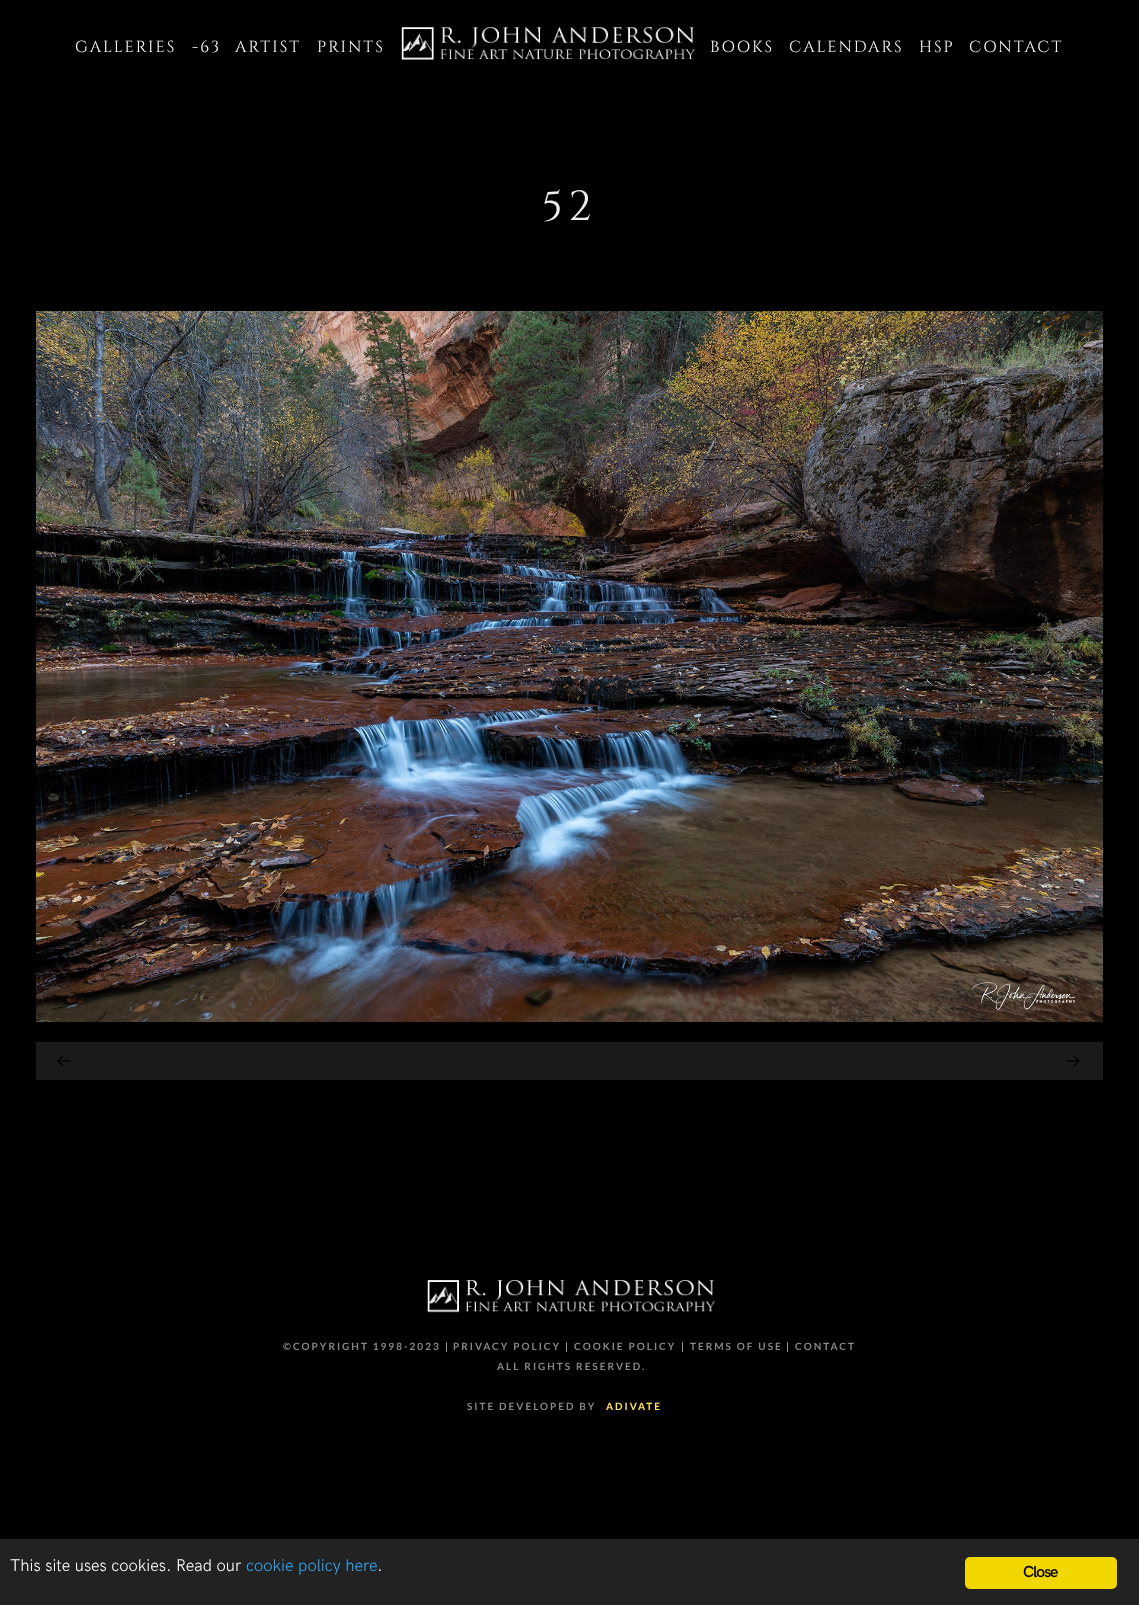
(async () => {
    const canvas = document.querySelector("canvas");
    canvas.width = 1139;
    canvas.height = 1605;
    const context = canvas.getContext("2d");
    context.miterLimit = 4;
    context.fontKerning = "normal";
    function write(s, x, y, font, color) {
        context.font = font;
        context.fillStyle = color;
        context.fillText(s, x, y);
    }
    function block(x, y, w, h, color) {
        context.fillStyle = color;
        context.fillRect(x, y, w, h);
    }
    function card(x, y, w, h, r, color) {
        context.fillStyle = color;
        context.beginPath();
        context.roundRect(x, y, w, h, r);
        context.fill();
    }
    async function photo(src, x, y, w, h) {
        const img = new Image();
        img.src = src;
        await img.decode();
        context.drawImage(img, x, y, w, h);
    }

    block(0, 0, 1139, 1605, "rgb(0, 0, 0)");
    context.letterSpacing = "2px";
    write("GALLERIES", 75, 52, "16px Cinzel", "rgb(255, 255, 255)");
    write("-63", 192, 52, "16px Cinzel", "rgb(255, 255, 255)");
    write("ARTIST", 235, 52, "16px Cinzel", "rgb(255, 255, 255)");
    write("PRINTS", 317, 52, "16px Cinzel", "rgb(255, 255, 255)");
    await photo("media/1.png", 401, 26, 294, 34);
    write("BOOKS", 710, 52, "16px Cinzel", "rgb(255, 255, 255)");
    write("CALENDARS", 789, 52, "16px Cinzel", "rgb(255, 255, 255)");
    write("HSP", 919, 52, "16px Cinzel", "rgb(255, 255, 255)");
    write("CONTACT", 969, 52, "16px Cinzel", "rgb(255, 255, 255)");
    context.letterSpacing = "6px";
    write("52", 542, 220, "42px Cinzel", "rgb(238, 238, 238)");
    await photo("media/2.png", 36, 311, 1067, 711);
    block(36, 1042, 1067, 38, "rgb(26, 26, 26)");
    await photo("media/3.png", 57, 1055, 14, 12);
    await photo("media/4.png", 1066, 1055, 14, 12);
    await photo("media/5.png", 427, 1279, 288, 34);
    context.letterSpacing = "2px";
    write("©COPYRIGHT 1998-2023", 283, 1350, "bold 10px Lato", "rgb(136, 136, 136)");
    write("|", 445, 1350, "bold 10px Lato", "rgb(161, 161, 161)");
    write("PRIVACY POLICY", 453, 1350, "bold 10px Lato", "rgb(136, 136, 136)");
    write("|", 565, 1350, "bold 10px Lato", "rgb(161, 161, 161)");
    write("COOKIE POLICY", 574, 1350, "bold 10px Lato", "rgb(136, 136, 136)");
    write("|", 681, 1350, "bold 10px Lato", "rgb(161, 161, 161)");
    write("TERMS OF USE", 690, 1350, "bold 10px Lato", "rgb(136, 136, 136)");
    write("|", 786, 1350, "bold 10px Lato", "rgb(161, 161, 161)");
    write("CONTACT", 795, 1350, "bold 10px Lato", "rgb(136, 136, 136)");
    write("ALL RIGHTS RESERVED.", 497, 1370, "bold 10px Lato", "rgb(136, 136, 136)");
    write("SITE DEVELOPED BY", 467, 1410, "bold 10px Lato", "rgb(136, 136, 136)");
    write("ADIVATE", 606, 1410, "bold 10px Lato", "rgb(255, 226, 97)");
    block(0, 1539, 1139, 66, "rgb(34, 34, 34)");
    context.letterSpacing = "0px";
    write("This site uses cookies. Read our", 10, 1571, "300 17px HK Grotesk", "rgb(255, 255, 255)");
    write("cookie policy here", 246, 1571, "300 17px HK Grotesk", "rgb(49, 168, 240)");
    write(".", 377, 1571, "300 17px HK Grotesk", "rgb(255, 255, 255)");
    card(965, 1557, 152, 32, 5, "rgb(241, 214, 0)");
    context.letterSpacing = "-1px";
    write("Close", 1023, 1577, "600 16px HK Grotesk", "rgb(0, 0, 0)");
})();
